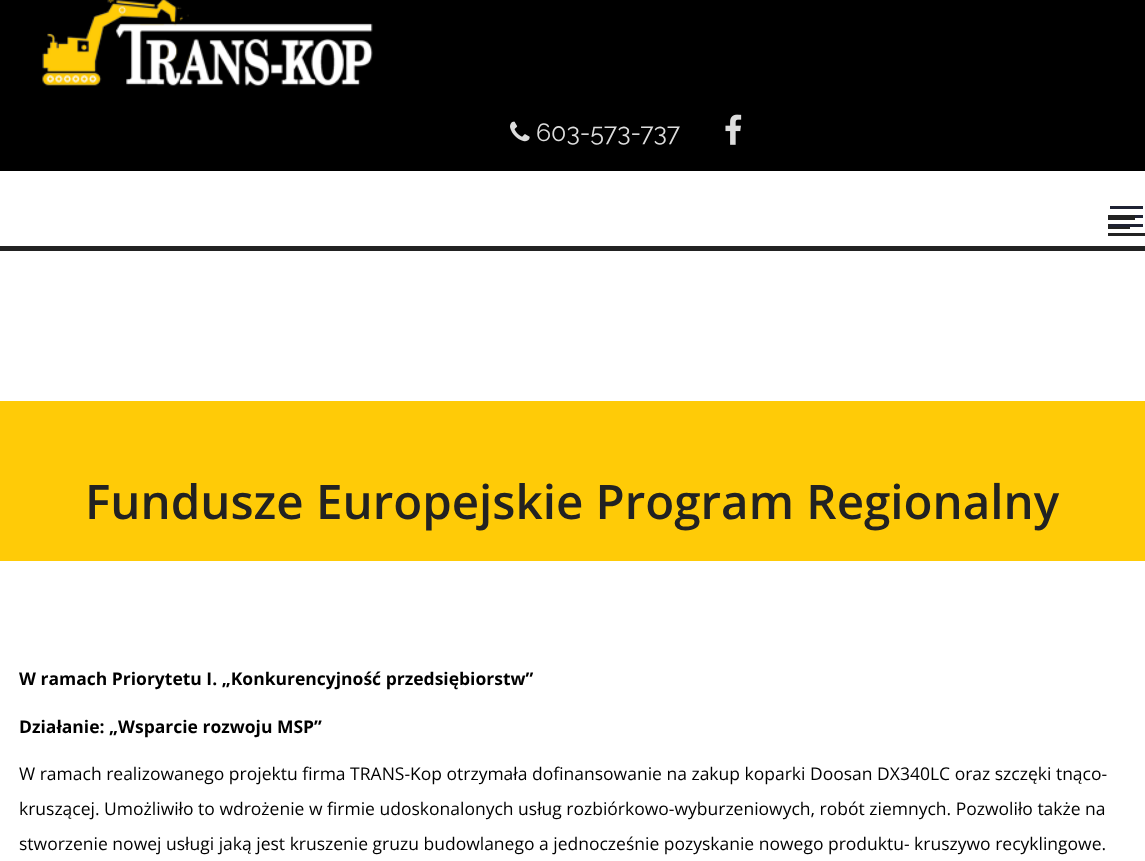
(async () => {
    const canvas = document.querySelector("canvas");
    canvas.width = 1145;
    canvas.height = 861;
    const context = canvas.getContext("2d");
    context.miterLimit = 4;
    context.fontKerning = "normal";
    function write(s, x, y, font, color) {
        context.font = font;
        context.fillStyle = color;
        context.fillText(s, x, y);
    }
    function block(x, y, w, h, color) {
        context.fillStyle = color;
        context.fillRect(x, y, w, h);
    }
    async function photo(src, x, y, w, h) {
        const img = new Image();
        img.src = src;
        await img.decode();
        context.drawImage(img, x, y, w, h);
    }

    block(0, 0, 1145, 861, "rgb(255, 255, 255)");
    block(0, 0, 1145, 171, "rgb(0, 0, 0)");
    await photo("media/1.png", 42, 0, 331, 87);
    await photo("media/2.png", 510, 121, 20, 21);
    write("603-573-737", 536, 141, "25px Raleway", "rgb(221, 221, 221)");
    await photo("media/3.png", 725, 114, 17, 31);
    block(0, 246, 1145, 5, "rgb(34, 34, 34)");
    block(1110, 206, 33, 3, "rgb(31, 34, 51)");
    block(1135, 215, 8, 3, "rgb(31, 34, 51)");
    block(1108, 233, 37, 3, "rgb(34, 34, 34)");
    block(1108, 224, 22, 5, "rgb(34, 34, 34)");
    block(1108, 215, 27, 5, "rgb(34, 34, 34)");
    block(1110, 224, 33, 3, "rgb(31, 34, 51)");
    block(0, 401, 1145, 160, "rgb(255, 203, 7)");
    write("Fundusze Europejskie Program Regionalny", 85, 519, "600 47.5px Open Sans", "rgb(34, 34, 34)");
    write("W ramach Priorytetu I. „Konkurencyjność przedsiębiorstw”", 19, 685, "bold 17.5px Open Sans", "rgb(0, 0, 0)");
    write("Działanie: „Wsparcie rozwoju MSP”", 19, 733, "bold 17.5px Open Sans", "rgb(0, 0, 0)");
    write("W ramach realizowanego projektu firma TRANS-Kop otrzymała dofinansowanie na zakup koparki Doosan DX340LC oraz szczęki tnąco-", 19, 780, "17.5px Open Sans", "rgb(0, 0, 0)");
    write("kruszącej. Umożliwiło to wdrożenie w firmie udoskonalonych usług rozbiórkowo-wyburzeniowych, robót ziemnych. Pozwoliło także na", 19, 815, "17.5px Open Sans", "rgb(0, 0, 0)");
    write("stworzenie nowej usługi jaką jest kruszenie gruzu budowlanego a jednocześnie pozyskanie nowego produktu- kruszywo recyklingowe.", 19, 850, "17.5px Open Sans", "rgb(0, 0, 0)");
})();
